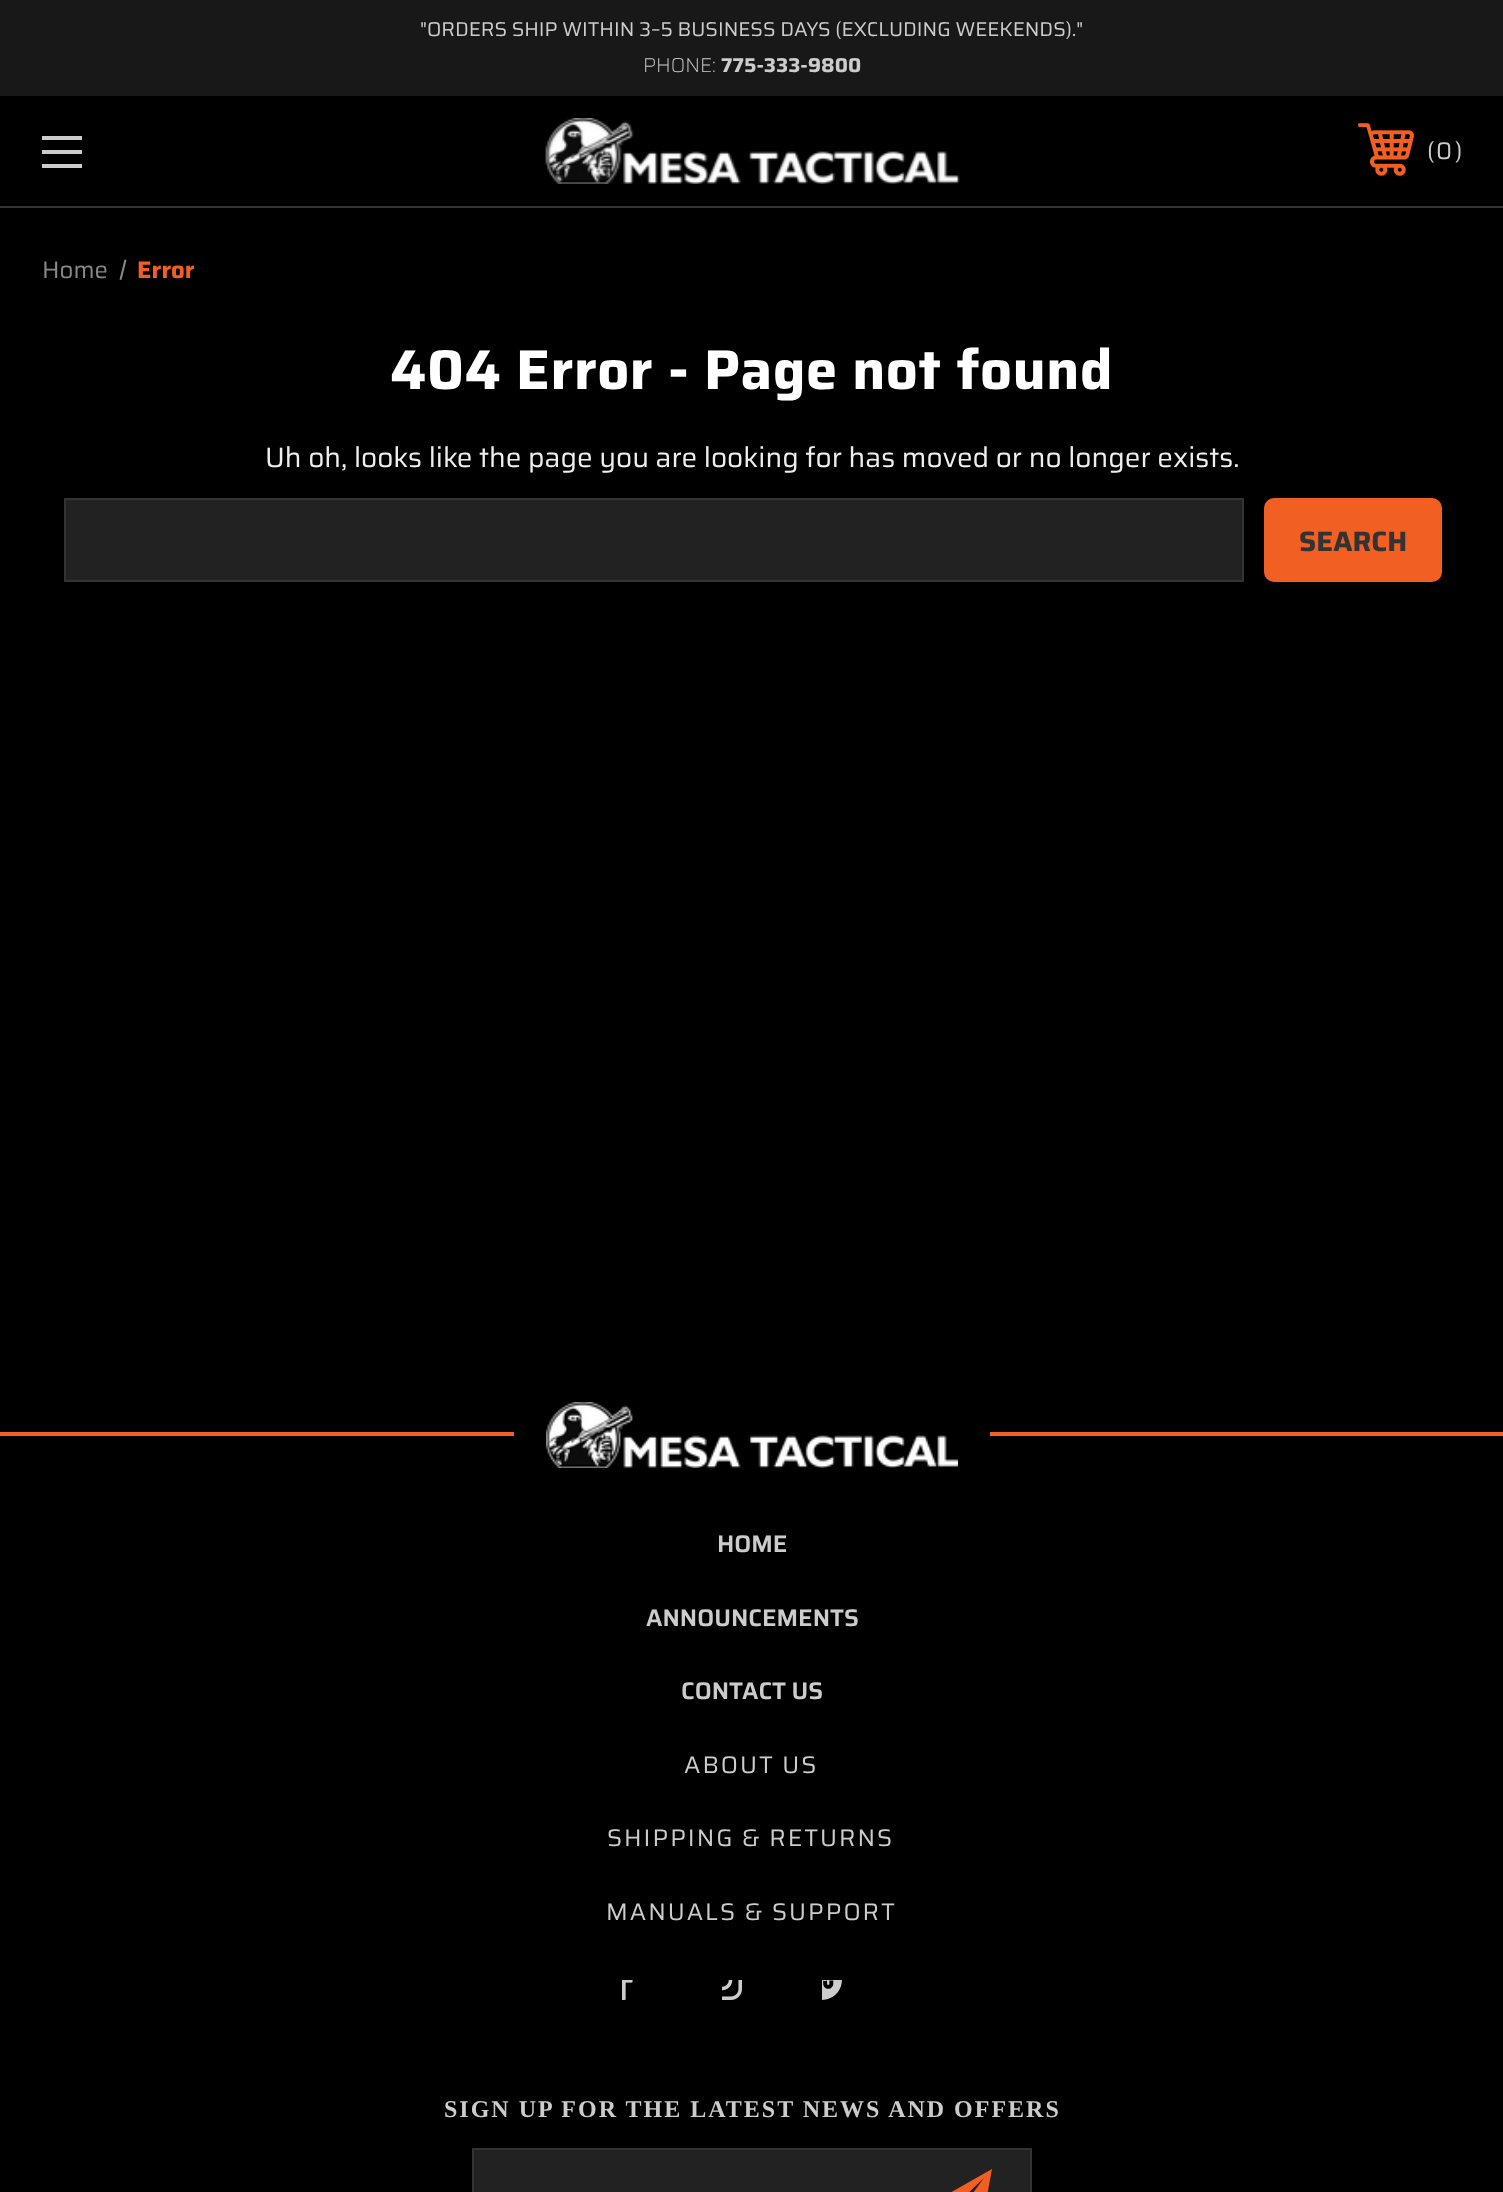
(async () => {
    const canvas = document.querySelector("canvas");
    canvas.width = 1503;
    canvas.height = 2192;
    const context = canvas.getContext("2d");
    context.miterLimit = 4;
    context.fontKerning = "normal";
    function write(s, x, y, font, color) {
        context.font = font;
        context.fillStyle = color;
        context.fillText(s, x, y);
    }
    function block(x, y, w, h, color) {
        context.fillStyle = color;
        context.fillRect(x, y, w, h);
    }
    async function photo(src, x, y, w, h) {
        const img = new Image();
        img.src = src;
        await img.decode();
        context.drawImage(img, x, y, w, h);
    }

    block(0, 0, 1503, 2192, "rgb(0, 0, 0)");
    block(0, 0, 1503, 96, "rgb(24, 24, 24)");
    write("\"ORDERS SHIP WITHIN 3–5 BUSINESS DAYS (EXCLUDING WEEKENDS).\"", 420, 36, "20px Saira", "rgb(204, 204, 204)");
    write("PHONE:", 643, 72, "200 20px Saira", "rgb(204, 204, 204)");
    write("775-333-9800", 721, 72, "bold 20px Saira", "rgb(204, 204, 204)");
    block(0, 206, 1503, 2, "rgb(51, 51, 51)");
    block(42, 150, 40, 4, "rgb(204, 204, 204)");
    block(42, 136, 40, 4, "rgb(204, 204, 204)");
    block(42, 164, 40, 4, "rgb(204, 204, 204)");
    await photo("media/1.png", 545, 118, 415, 66);
    await photo("media/2.png", 1358, 123, 56, 53);
    write("(", 1427, 159, "24px Saira", "rgb(204, 204, 204)");
    write("0", 1436, 159, "24px Saira", "rgb(204, 204, 204)");
    write(")", 1455, 159, "24px Saira", "rgb(204, 204, 204)");
    write("Home", 42, 278, "24px Saira", "rgb(136, 136, 136)");
    context.beginPath();
    context.moveTo(124.5, 259.5);
    context.lineTo(126.5, 260);
    context.lineTo(121.5, 280);
    context.lineTo(119.5, 279.5);
    context.closePath();
    context.fill();
    write("Error", 137, 278, "bold 24px Saira", "rgb(241, 95, 34)");
    context.letterSpacing = "0.5px";
    write("404 Error - Page not found", 390, 389, "bold 56px Saira", "rgb(255, 255, 255)");
    context.letterSpacing = "0px";
    write("Uh oh, looks like the page you are looking for has moved or no longer exists.", 265, 467, "28px Saira", "rgb(238, 238, 238)");
    context.fillStyle = "rgb(34, 34, 34)";
    context.beginPath();
    context.rect(65, 499, 1178, 82);
    context.fill();
    context.strokeStyle = "rgb(51, 51, 51)";
    context.lineWidth = 2;
    context.stroke();
    context.fillStyle = "rgb(241, 95, 34)";
    context.beginPath();
    context.roundRect(1265, 499, 176, 82, 9);
    context.fill();
    context.strokeStyle = "rgb(241, 95, 34)";
    context.stroke();
    write("SEARCH", 1299, 551, "bold 28px Saira", "rgb(51, 51, 51)");
    block(0, 1432, 1503, 4, "rgb(241, 95, 34)");
    block(514, 1432, 476, 4, "rgb(0, 0, 0)");
    await photo("media/3.png", 546, 1402, 412, 66);
    write("HOME", 717, 1552, "600 24px Saira", "rgb(204, 204, 204)");
    write("ANNOUNCEMENTS", 646, 1626, "600 24px Saira", "rgb(204, 204, 204)");
    write("CONTACT US", 681, 1699, "600 24px Saira", "rgb(204, 204, 204)");
    context.letterSpacing = "2px";
    write("ABOUT US", 684, 1773, "24px Saira", "rgb(204, 204, 204)");
    write("SHIPPING & RETURNS", 607, 1846, "24px Saira", "rgb(204, 204, 204)");
    write("MANUALS & SUPPORT", 606, 1920, "24px Saira", "rgb(204, 204, 204)");
    await photo("media/4.png", 622, 1980, 11, 20);
    await photo("media/5.png", 722, 1980, 20, 20);
    await photo("media/6.png", 822, 1980, 20, 20);
    write("SIGN UP FOR THE LATEST NEWS AND OFFERS", 444, 2117, "bold 24px Liberation Serif", "rgb(204, 204, 204)");
    context.fillStyle = "rgb(34, 34, 34)";
    context.beginPath();
    context.rect(473, 2149, 558, 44);
    context.fill();
    context.strokeStyle = "rgb(51, 51, 51)";
    context.stroke();
    context.fillStyle = "rgb(241, 95, 34)";
    context.beginPath();
    context.moveTo(992, 2169);
    context.lineTo(948, 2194);
    context.lineTo(962, 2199);
    context.lineTo(984, 2178);
    context.lineTo(967, 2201);
    context.lineTo(967, 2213);
    context.lineTo(975, 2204);
    context.lineTo(985, 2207);
    context.closePath();
    context.fill();
})();
